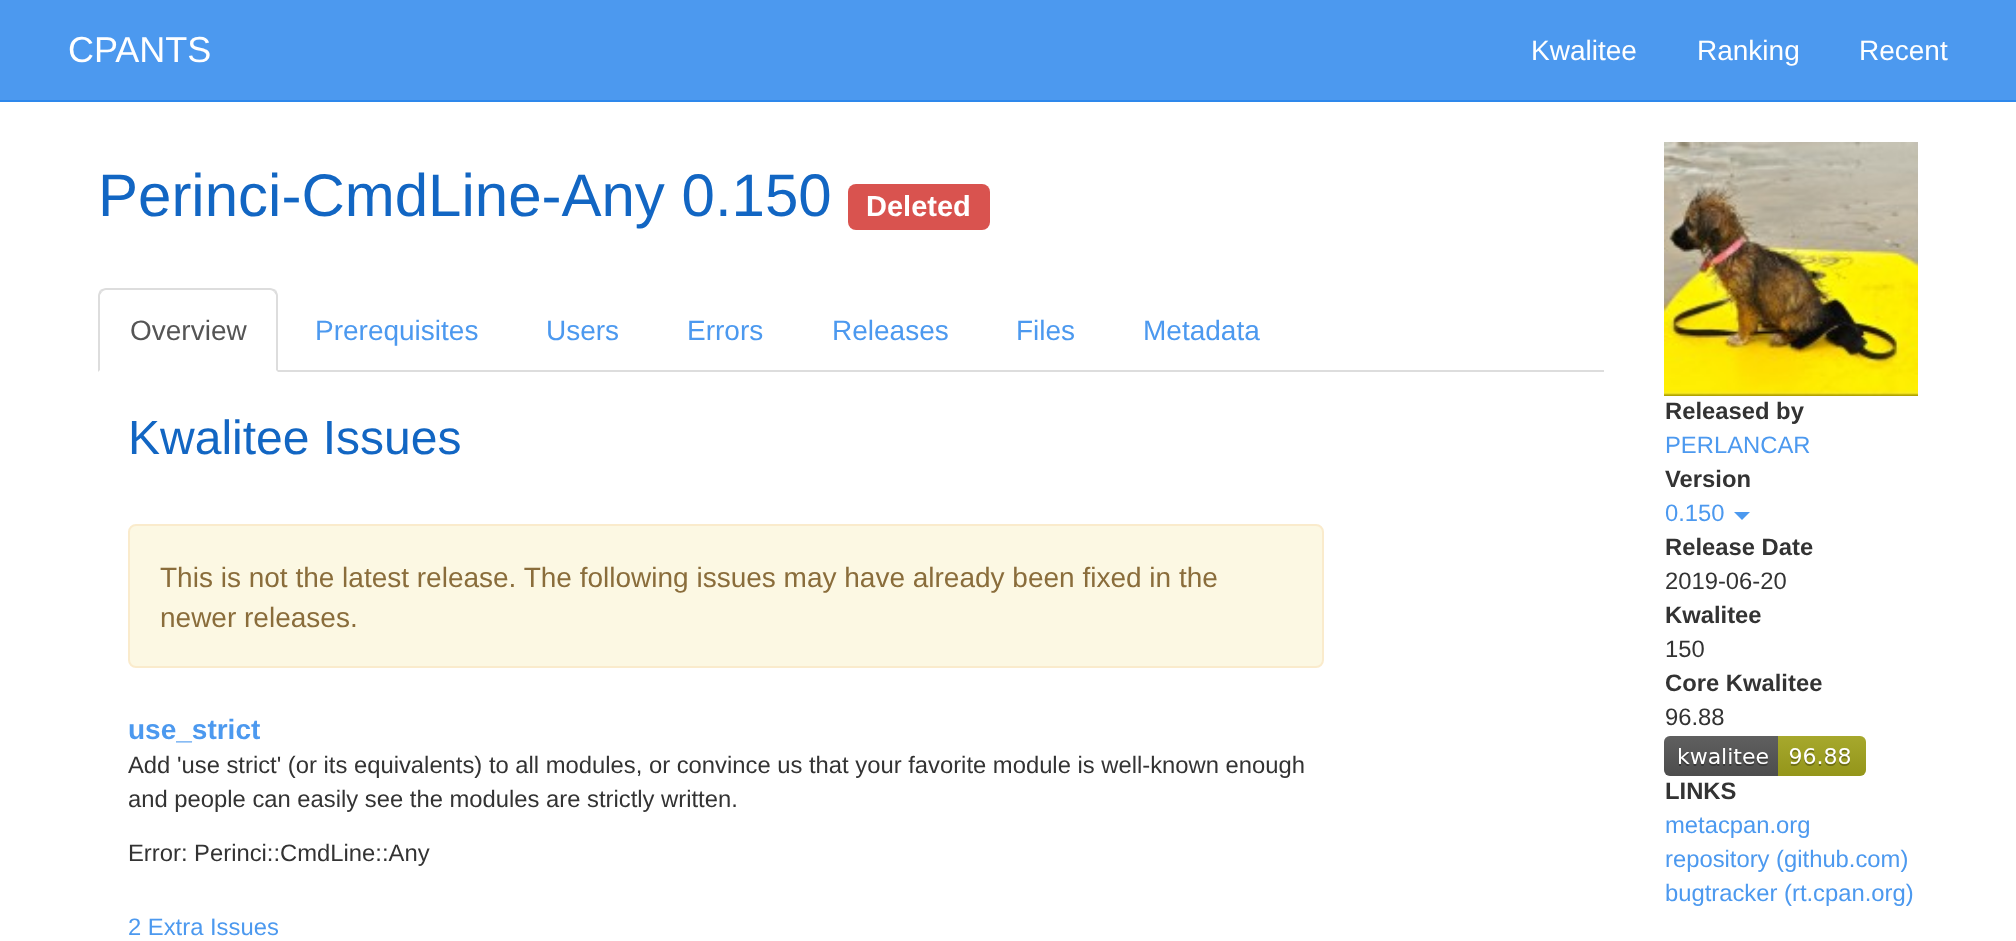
(async () => {
    const canvas = document.querySelector("canvas");
    canvas.width = 2016;
    canvas.height = 941;
    const context = canvas.getContext("2d");
    context.miterLimit = 4;
    context.fontKerning = "normal";
    function write(s, x, y, font, color) {
        context.font = font;
        context.fillStyle = color;
        context.fillText(s, x, y);
    }
    function block(x, y, w, h, color) {
        context.fillStyle = color;
        context.fillRect(x, y, w, h);
    }
    function card(x, y, w, h, r, color) {
        context.fillStyle = color;
        context.beginPath();
        context.roundRect(x, y, w, h, r);
        context.fill();
    }
    async function photo(src, x, y, w, h) {
        const img = new Image();
        img.src = src;
        await img.decode();
        context.drawImage(img, x, y, w, h);
    }

    block(0, 0, 2016, 941, "rgb(255, 255, 255)");
    block(0, 0, 2016, 100, "rgb(76, 153, 239)");
    block(0, 100, 2016, 2, "rgb(46, 136, 236)");
    write("CPANTS", 68, 62, "36px Liberation Sans", "rgb(255, 255, 255)");
    write("Kwalitee", 1531, 60, "28px Liberation Sans", "rgb(255, 255, 255)");
    write("Ranking", 1697, 60, "28px Liberation Sans", "rgb(255, 255, 255)");
    write("Recent", 1859, 60, "28px Liberation Sans", "rgb(255, 255, 255)");
    write("Perinci-CmdLine-Any 0.150", 98, 216, "60px Liberation Sans", "rgb(18, 102, 195)");
    card(848, 184, 142, 46, 8, "rgb(217, 83, 79)");
    write("Deleted", 866, 216, "bold 29px Liberation Sans", "rgb(255, 255, 255)");
    block(278, 370, 1326, 2, "rgb(221, 221, 221)");
    context.beginPath();
    context.moveTo(106, 288);
    context.bezierCurveTo(104, 288, 102, 289, 100, 290);
    context.lineTo(102, 292);
    context.bezierCurveTo(103, 291, 104, 290, 106, 290);
    context.lineTo(270, 290);
    context.bezierCurveTo(272, 290, 273, 291, 274, 292);
    context.lineTo(276, 290);
    context.bezierCurveTo(274, 289, 272, 288, 270, 288);
    context.closePath();
    context.fill();
    context.beginPath();
    context.moveTo(278, 372);
    context.lineTo(278, 296);
    context.bezierCurveTo(278, 294, 277, 292, 276, 290);
    context.lineTo(274, 292);
    context.lineTo(276, 295);
    context.lineTo(276, 370);
    context.closePath();
    context.fill();
    context.beginPath();
    context.moveTo(98, 372);
    context.lineTo(100, 370);
    context.lineTo(100, 295);
    context.lineTo(102, 292);
    context.lineTo(100, 290);
    context.bezierCurveTo(99, 292, 98, 294, 98, 296);
    context.closePath();
    context.fill();
    write("Overview", 130, 340, "28px Liberation Sans", "rgb(85, 85, 85)");
    write("Prerequisites", 315, 340, "28px Liberation Sans", "rgb(76, 153, 239)");
    write("Users", 546, 340, "28px Liberation Sans", "rgb(76, 153, 239)");
    write("Errors", 687, 340, "28px Liberation Sans", "rgb(76, 153, 239)");
    write("Releases", 832, 340, "28px Liberation Sans", "rgb(76, 153, 239)");
    write("Files", 1016, 340, "28px Liberation Sans", "rgb(76, 153, 239)");
    write("Metadata", 1143, 340, "28px Liberation Sans", "rgb(76, 153, 239)");
    write("Kwalitee Issues", 128, 454, "48px Liberation Sans", "rgb(18, 102, 195)");
    context.fillStyle = "rgb(252, 248, 227)";
    context.beginPath();
    context.roundRect(129, 525, 1194, 142, 7);
    context.fill();
    context.strokeStyle = "rgb(250, 235, 204)";
    context.lineWidth = 2;
    context.stroke();
    write("This is not the latest release. The following issues may have already been fixed in the", 160, 587, "28px Liberation Sans", "rgb(138, 109, 59)");
    write("newer releases.", 160, 627, "28px Liberation Sans", "rgb(138, 109, 59)");
    write("use_strict", 128, 739, "bold 28px Liberation Sans", "rgb(76, 153, 239)");
    write("Add 'use strict' (or its equivalents) to all modules, or convince us that your favorite module is well-known enough", 128, 773, "23.8px Liberation Sans", "rgb(51, 51, 51)");
    write("and people can easily see the modules are strictly written.", 128, 807, "23.8px Liberation Sans", "rgb(51, 51, 51)");
    write("Error: Perinci::CmdLine::Any", 128, 861, "23.8px Liberation Sans", "rgb(51, 51, 51)");
    write("2 Extra Issues", 128, 935, "23.8px Liberation Sans", "rgb(76, 153, 239)");
    await photo("media/1.png", 1664, 142, 254, 254);
    write("Released by", 1665, 419, "bold 23.8px Liberation Sans", "rgb(51, 51, 51)");
    write("PERLANCAR", 1665, 453, "23.8px Liberation Sans", "rgb(76, 153, 239)");
    write("Version", 1665, 487, "bold 23.8px Liberation Sans", "rgb(51, 51, 51)");
    write("0.150", 1665, 521, "23.8px Liberation Sans", "rgb(76, 153, 239)");
    context.beginPath();
    context.moveTo(1734, 512);
    context.lineTo(1750, 512);
    context.lineTo(1742, 520);
    context.closePath();
    context.fill();
    write("Release Date", 1665, 555, "bold 23.8px Liberation Sans", "rgb(51, 51, 51)");
    write("2019-06-20", 1665, 589, "23.8px Liberation Sans", "rgb(51, 51, 51)");
    write("Kwalitee", 1665, 623, "bold 23.8px Liberation Sans", "rgb(51, 51, 51)");
    write("150", 1665, 657, "23.8px Liberation Sans", "rgb(51, 51, 51)");
    write("Core Kwalitee", 1665, 691, "bold 23.8px Liberation Sans", "rgb(51, 51, 51)");
    write("96.88", 1665, 725, "23.8px Liberation Sans", "rgb(51, 51, 51)");
    await photo("media/2.png", 1664, 736, 202, 40);
    write("LINKS", 1665, 799, "bold 23.8px Liberation Sans", "rgb(51, 51, 51)");
    write("metacpan.org", 1665, 833, "23.8px Liberation Sans", "rgb(76, 153, 239)");
    write("repository (github.com)", 1665, 867, "23.8px Liberation Sans", "rgb(76, 153, 239)");
    write("bugtracker (rt.cpan.org)", 1665, 901, "23.8px Liberation Sans", "rgb(76, 153, 239)");
})();
